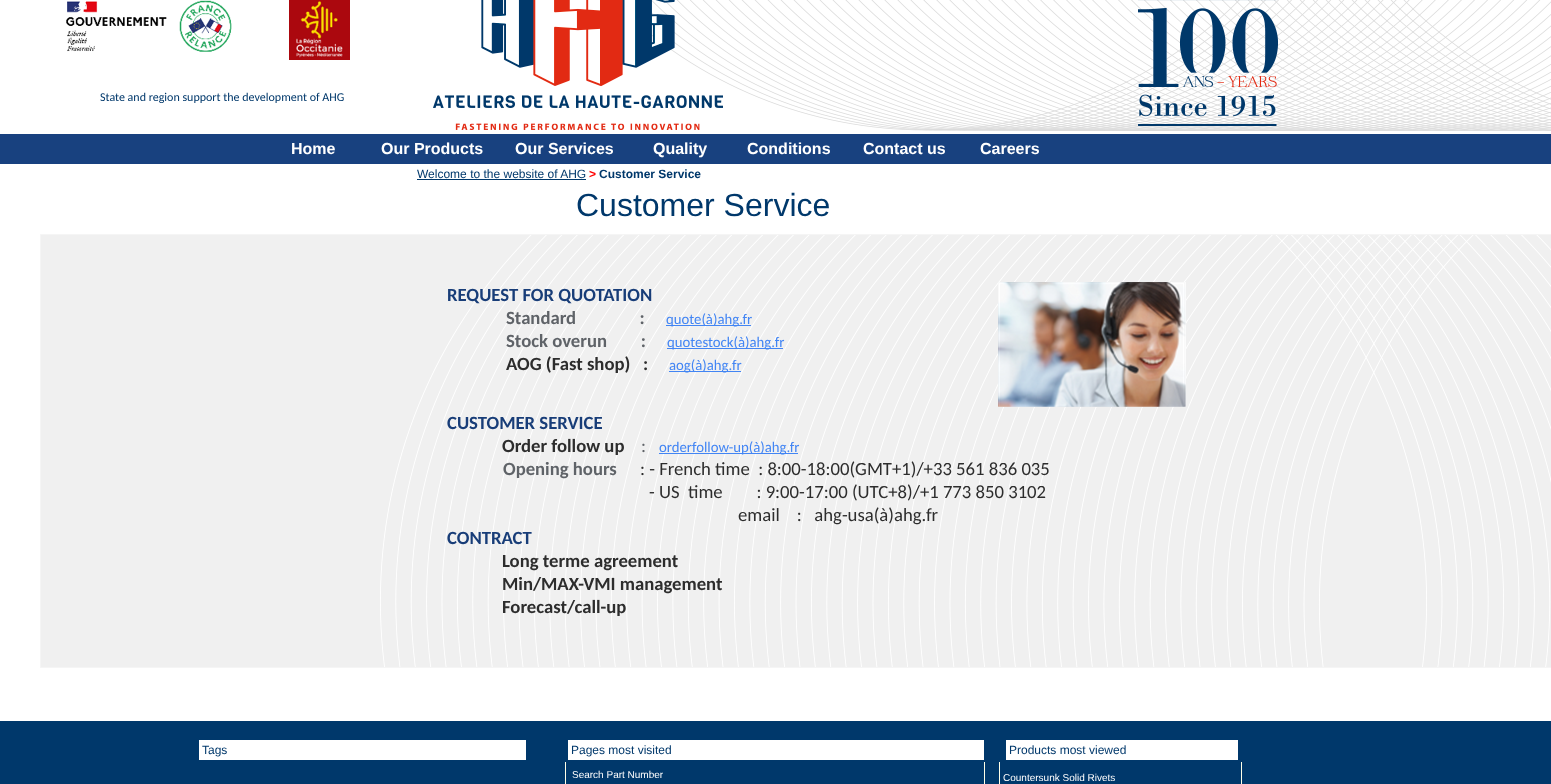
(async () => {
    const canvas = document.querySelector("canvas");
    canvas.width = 1551;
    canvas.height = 784;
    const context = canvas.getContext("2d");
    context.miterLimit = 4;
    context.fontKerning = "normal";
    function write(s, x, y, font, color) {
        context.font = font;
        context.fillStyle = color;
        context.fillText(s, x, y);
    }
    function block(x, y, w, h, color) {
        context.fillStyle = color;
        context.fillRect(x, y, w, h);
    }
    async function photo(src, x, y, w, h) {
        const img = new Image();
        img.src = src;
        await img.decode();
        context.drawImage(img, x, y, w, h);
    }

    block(0, 0, 1551, 784, "rgb(255, 255, 255)");
    block(0, 134, 1551, 30, "rgb(24, 65, 127)");
    await photo("media/1.png", 651, 0, 900, 131);
    await photo("media/2.png", 66, 0, 166, 52);
    await photo("media/3.png", 289, 0, 61, 60);
    write("State and region support the development of AHG", 100, 101, "12px Carlito", "rgb(0, 56, 107)");
    await photo("media/4.png", 433, 0, 290, 130);
    await photo("media/5.png", 1138, 0, 140, 126);
    write("Home", 291, 154, "bold 16px Liberation Sans", "rgb(255, 255, 255)");
    write("Our Products", 381, 154, "bold 16px Liberation Sans", "rgb(255, 255, 255)");
    write("Our Services", 515, 154, "bold 16px Liberation Sans", "rgb(255, 255, 255)");
    write("Quality", 653, 154, "bold 16px Liberation Sans", "rgb(255, 255, 255)");
    write("Conditions", 747, 154, "bold 16px Liberation Sans", "rgb(255, 255, 255)");
    write("Contact us", 863, 154, "bold 16px Liberation Sans", "rgb(255, 255, 255)");
    write("Careers", 980, 154, "bold 16px Liberation Sans", "rgb(255, 255, 255)");
    write("Welcome to the website of AHG", 417, 178, "12px Liberation Sans", "rgb(0, 56, 107)");
    block(417, 179, 169, 1, "rgb(0, 56, 107)");
    write(">", 589, 178, "bold 12px Liberation Sans", "rgb(255, 0, 0)");
    write("Customer Service", 599, 178, "bold 12px Liberation Sans", "rgb(0, 56, 107)");
    write("Customer Service", 576, 216, "32px Liberation Sans", "rgb(0, 56, 107)");
    context.fillStyle = "rgb(240, 240, 240)";
    context.beginPath();
    context.rect(40.5, 234.5, 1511, 433);
    context.fill();
    context.strokeStyle = "rgb(245, 245, 245)";
    context.stroke();
    await photo("media/6.png", 380, 235, 1171, 432);
    write("REQUEST FOR QUOTATION", 447, 301, "bold 18.7px Carlito", "rgb(24, 61, 120)");
    write("Standard               :", 506, 324, "bold 18.7px Carlito", "rgb(95, 99, 104)");
    block(666, 325, 85, 1, "rgb(66, 133, 244)");
    write("quote(à)ahg.fr", 666, 324, "14.75px Carlito", "rgb(66, 133, 244)");
    write("Stock overun        :", 506, 347, "bold 18.7px Carlito", "rgb(95, 99, 104)");
    block(667, 348, 116, 1, "rgb(66, 133, 244)");
    write("quotestock(à)ahg.fr", 667, 347, "14.75px Carlito", "rgb(66, 133, 244)");
    write("AOG (Fast shop)", 506, 370, "bold 18.7px Carlito", "rgb(45, 45, 45)");
    write(":", 643, 370, "bold 18.7px Carlito", "rgb(45, 45, 45)");
    block(669, 371, 72, 1, "rgb(66, 133, 244)");
    write("aog(à)ahg.fr", 669, 370, "14.75px Carlito", "rgb(66, 133, 244)");
    write("CUSTOMER SERVICE", 447, 429, "bold 18.7px Carlito", "rgb(24, 61, 120)");
    write("Order follow up", 502, 452, "bold 18.7px Carlito", "rgb(45, 45, 45)");
    write(":", 641, 452, "18.7px Carlito", "rgb(95, 99, 104)");
    block(659, 453, 139, 1, "rgb(66, 133, 244)");
    write("orderfollow-up(à)ahg.fr", 659, 452, "14.75px Carlito", "rgb(66, 133, 244)");
    write("Opening hours", 503, 475, "bold 18.7px Carlito", "rgb(95, 99, 104)");
    write(": - French time  : 8:00-18:00(GMT+1)/+33 561 836 035", 640, 475, "18.7px Carlito", "rgb(45, 45, 45)");
    write("- US  time        : 9:00-17:00 (UTC+8)/+1 773 850 3102", 649, 498, "18.7px Carlito", "rgb(45, 45, 45)");
    write("email    :   ahg-usa(à)ahg.fr", 738, 521, "18.7px Carlito", "rgb(45, 45, 45)");
    write("CONTRACT", 447, 544, "bold 18.7px Carlito", "rgb(24, 61, 120)");
    write("Long terme agreement", 502, 567, "bold 18.7px Carlito", "rgb(45, 45, 45)");
    write("Min/MAX-VMI management", 502, 590, "bold 18.7px Carlito", "rgb(45, 45, 45)");
    write("Forecast/call-up", 502, 613, "bold 18.7px Carlito", "rgb(45, 45, 45)");
    await photo("media/7.png", 998, 282, 188, 125);
    block(0, 721, 1551, 63, "rgb(0, 56, 107)");
    block(199, 740, 327, 20, "rgb(255, 255, 255)");
    write("Tags", 202, 754, "12px Liberation Sans", "rgb(0, 56, 107)");
    block(568, 740, 416, 20, "rgb(255, 255, 255)");
    write("Pages most visited", 571, 754, "12px Liberation Sans", "rgb(0, 56, 107)");
    block(1006, 740, 232, 20, "rgb(255, 255, 255)");
    write("Products most viewed", 1009, 754, "12px Liberation Sans", "rgb(0, 56, 107)");
    block(984, 762, 1, 22, "rgb(255, 255, 232)");
    block(1241, 762, 1, 22, "rgb(255, 255, 232)");
    block(565, 762, 1, 22, "rgb(255, 255, 232)");
    write("Search Part Number", 572, 778, "10px Liberation Sans", "rgb(255, 255, 255)");
    block(999, 762, 1, 22, "rgb(255, 255, 232)");
    write("Countersunk Solid Rivets", 1003, 781, "10px Liberation Sans", "rgb(255, 255, 255)");
})();
